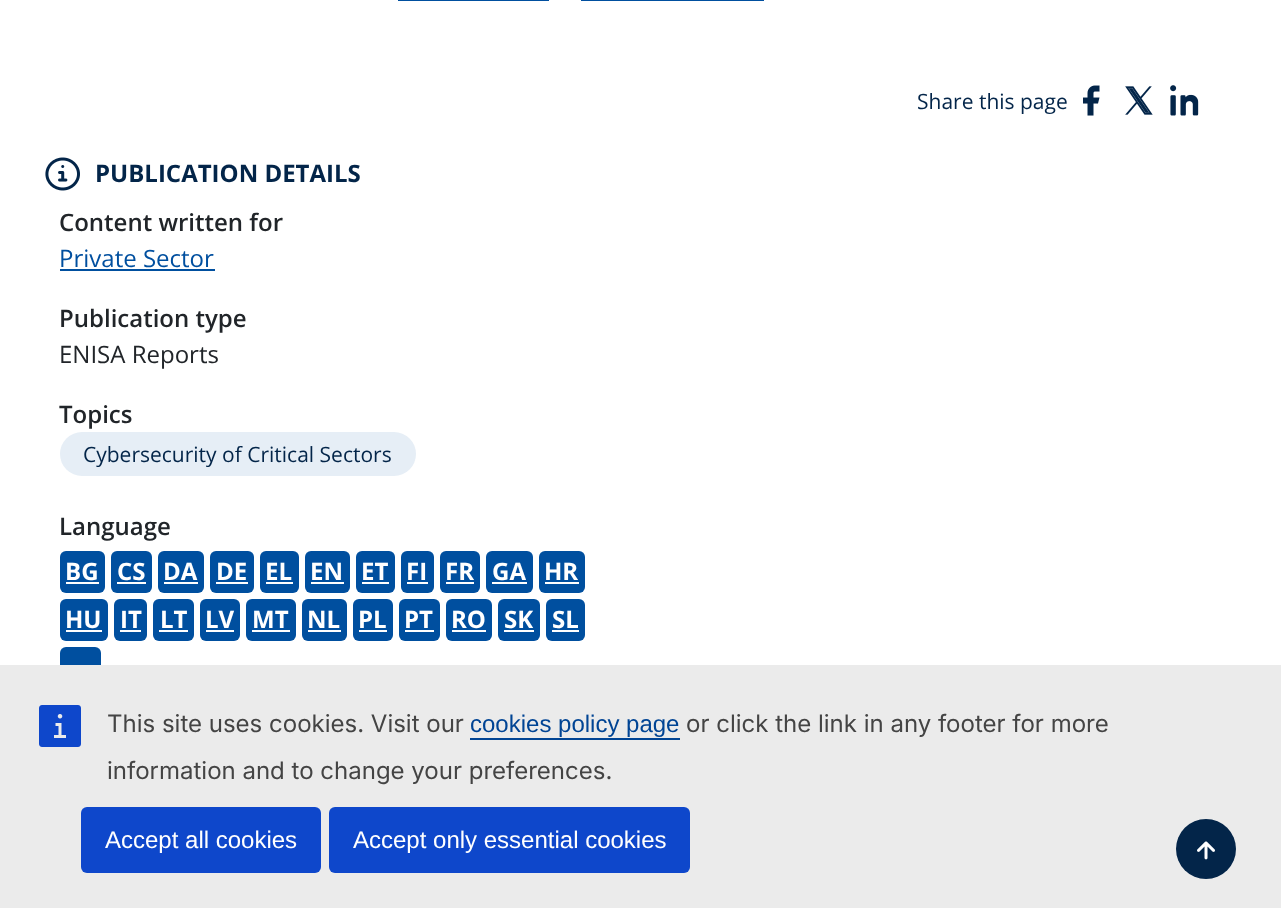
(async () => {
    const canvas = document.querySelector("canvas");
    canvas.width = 1281;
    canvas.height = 908;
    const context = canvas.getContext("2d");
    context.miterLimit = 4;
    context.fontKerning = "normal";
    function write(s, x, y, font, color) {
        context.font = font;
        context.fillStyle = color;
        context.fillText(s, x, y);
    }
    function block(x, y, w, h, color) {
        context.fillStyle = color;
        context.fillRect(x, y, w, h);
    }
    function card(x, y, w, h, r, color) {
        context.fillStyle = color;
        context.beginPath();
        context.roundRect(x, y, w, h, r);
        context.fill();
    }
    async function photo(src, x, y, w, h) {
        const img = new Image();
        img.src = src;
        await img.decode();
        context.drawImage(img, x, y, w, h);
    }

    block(0, 0, 1281, 908, "rgb(255, 255, 255)");
    block(398, 0, 151, 1, "rgb(0, 79, 159)");
    block(581, 0, 183, 1, "rgb(0, 79, 159)");
    write("Share this page", 917, 109, "21px Open Sans", "rgb(3, 37, 73)");
    await photo("media/1.png", 1083, 85, 17, 31);
    await photo("media/2.png", 1125, 86, 28, 29);
    await photo("media/3.png", 1170, 85, 29, 31);
    await photo("media/4.png", 45, 157, 35, 34);
    write("PUBLICATION DETAILS", 95, 182, "bold 24px Open Sans", "rgb(3, 37, 73)");
    write("Content written for", 59, 231, "600 24px Open Sans", "rgb(33, 37, 41)");
    write("Private Sector", 59, 267, "24px Open Sans", "rgb(0, 79, 159)");
    block(60, 269, 155, 2, "rgb(0, 79, 159)");
    write("Publication type", 59, 327, "600 24px Open Sans", "rgb(33, 37, 41)");
    write("ENISA Reports", 59, 363, "24px Open Sans", "rgb(33, 37, 41)");
    write("Topics", 59, 423, "600 24px Open Sans", "rgb(33, 37, 41)");
    card(60, 432, 356, 44, 22, "rgb(230, 238, 246)");
    write("Cybersecurity of Critical Sectors", 83, 462, "21px Open Sans", "rgb(3, 37, 73)");
    write("Language", 59, 535, "600 24px Open Sans", "rgb(33, 37, 41)");
    card(60, 551, 45, 42, 6, "rgb(0, 79, 159)");
    write("BG", 65, 580, "bold 24px Open Sans", "rgb(255, 255, 255)");
    block(66, 582, 33, 2, "rgb(255, 255, 255)");
    card(111, 551, 41, 42, 6, "rgb(0, 79, 159)");
    write("CS", 117, 580, "bold 24px Open Sans", "rgb(255, 255, 255)");
    block(117, 582, 29, 2, "rgb(255, 255, 255)");
    card(158, 551, 46, 42, 6, "rgb(0, 79, 159)");
    write("DA", 163, 580, "bold 24px Open Sans", "rgb(255, 255, 255)");
    block(164, 582, 34, 2, "rgb(255, 255, 255)");
    card(210, 551, 44, 42, 6, "rgb(0, 79, 159)");
    write("DE", 216, 580, "bold 24px Open Sans", "rgb(255, 255, 255)");
    block(216, 582, 32, 2, "rgb(255, 255, 255)");
    card(260, 551, 39, 42, 6, "rgb(0, 79, 159)");
    write("EL", 265, 580, "bold 24px Open Sans", "rgb(255, 255, 255)");
    block(266, 582, 27, 2, "rgb(255, 255, 255)");
    card(305, 551, 45, 42, 6, "rgb(0, 79, 159)");
    write("EN", 310, 580, "bold 24px Open Sans", "rgb(255, 255, 255)");
    block(311, 582, 33, 2, "rgb(255, 255, 255)");
    card(356, 551, 39, 42, 6, "rgb(0, 79, 159)");
    write("ET", 361, 580, "bold 24px Open Sans", "rgb(255, 255, 255)");
    block(362, 582, 27, 2, "rgb(255, 255, 255)");
    card(401, 551, 33, 42, 6, "rgb(0, 79, 159)");
    write("FI", 406, 580, "bold 24px Open Sans", "rgb(255, 255, 255)");
    block(407, 582, 21, 2, "rgb(255, 255, 255)");
    card(440, 551, 40, 42, 6, "rgb(0, 79, 159)");
    write("FR", 445, 580, "bold 24px Open Sans", "rgb(255, 255, 255)");
    block(446, 582, 28, 2, "rgb(255, 255, 255)");
    card(486, 551, 47, 42, 6, "rgb(0, 79, 159)");
    write("GA", 492, 580, "bold 24px Open Sans", "rgb(255, 255, 255)");
    block(492, 582, 35, 2, "rgb(255, 255, 255)");
    card(539, 551, 46, 42, 6, "rgb(0, 79, 159)");
    write("HR", 544, 580, "bold 24px Open Sans", "rgb(255, 255, 255)");
    block(545, 582, 34, 2, "rgb(255, 255, 255)");
    card(60, 599, 48, 42, 6, "rgb(0, 79, 159)");
    write("HU", 65, 628, "bold 24px Open Sans", "rgb(255, 255, 255)");
    block(66, 630, 36, 2, "rgb(255, 255, 255)");
    card(114, 599, 33, 42, 6, "rgb(0, 79, 159)");
    write("IT", 120, 628, "bold 24px Open Sans", "rgb(255, 255, 255)");
    block(120, 630, 21, 2, "rgb(255, 255, 255)");
    card(153, 599, 41, 42, 6, "rgb(0, 79, 159)");
    write("LT", 160, 628, "bold 24px Open Sans", "rgb(255, 255, 255)");
    block(159, 630, 29, 2, "rgb(255, 255, 255)");
    card(200, 599, 40, 42, 6, "rgb(0, 79, 159)");
    write("LV", 205, 628, "bold 24px Open Sans", "rgb(255, 255, 255)");
    block(206, 630, 28, 2, "rgb(255, 255, 255)");
    card(246, 599, 50, 42, 6, "rgb(0, 79, 159)");
    write("MT", 252, 628, "bold 24px Open Sans", "rgb(255, 255, 255)");
    block(252, 630, 38, 2, "rgb(255, 255, 255)");
    card(302, 599, 45, 42, 6, "rgb(0, 79, 159)");
    write("NL", 307, 628, "bold 24px Open Sans", "rgb(255, 255, 255)");
    block(308, 630, 33, 2, "rgb(255, 255, 255)");
    card(353, 599, 40, 42, 6, "rgb(0, 79, 159)");
    write("PL", 358, 628, "bold 24px Open Sans", "rgb(255, 255, 255)");
    block(359, 630, 28, 2, "rgb(255, 255, 255)");
    card(399, 599, 41, 42, 6, "rgb(0, 79, 159)");
    write("PT", 404, 628, "bold 24px Open Sans", "rgb(255, 255, 255)");
    block(405, 630, 29, 2, "rgb(255, 255, 255)");
    card(446, 599, 46, 42, 6, "rgb(0, 79, 159)");
    write("RO", 451, 628, "bold 24px Open Sans", "rgb(255, 255, 255)");
    block(452, 630, 34, 2, "rgb(255, 255, 255)");
    card(498, 599, 42, 42, 6, "rgb(0, 79, 159)");
    write("SK", 504, 628, "bold 24px Open Sans", "rgb(255, 255, 255)");
    block(504, 630, 30, 2, "rgb(255, 255, 255)");
    card(546, 599, 39, 42, 6, "rgb(0, 79, 159)");
    write("SL", 552, 628, "bold 24px Open Sans", "rgb(255, 255, 255)");
    block(552, 630, 27, 2, "rgb(255, 255, 255)");
    card(60, 647, 41, 42, 6, "rgb(0, 79, 159)");
    block(0, 665, 1281, 243, "rgb(235, 235, 235)");
    context.fillStyle = "rgb(3, 37, 73)";
    context.beginPath();
    context.arc(1206, 849, 30, 0, Math.PI * 2);
    context.fill();
    await photo("media/5.png", 1197, 841, 18, 19);
    await photo("media/6.png", 39, 705, 42, 42);
    write("This site uses cookies. Visit our", 107, 732, "24px Inter", "rgb(68, 68, 68)");
    write("cookies policy page", 470, 732, "24px Liberation Sans", "rgb(0, 68, 148)");
    block(470, 738, 210, 2, "rgb(0, 68, 148)");
    write("or click the link in any footer for more", 686, 732, "24px Inter", "rgb(68, 68, 68)");
    write("information and to change your preferences.", 107, 779, "24px Inter", "rgb(68, 68, 68)");
    card(81, 807, 240, 66, 6, "rgb(14, 71, 203)");
    write("Accept all cookies", 105, 848, "24px Liberation Sans", "rgb(255, 255, 255)");
    card(329, 807, 361, 66, 6, "rgb(14, 71, 203)");
    write("Accept only essential cookies", 353, 848, "24px Liberation Sans", "rgb(255, 255, 255)");
})();
